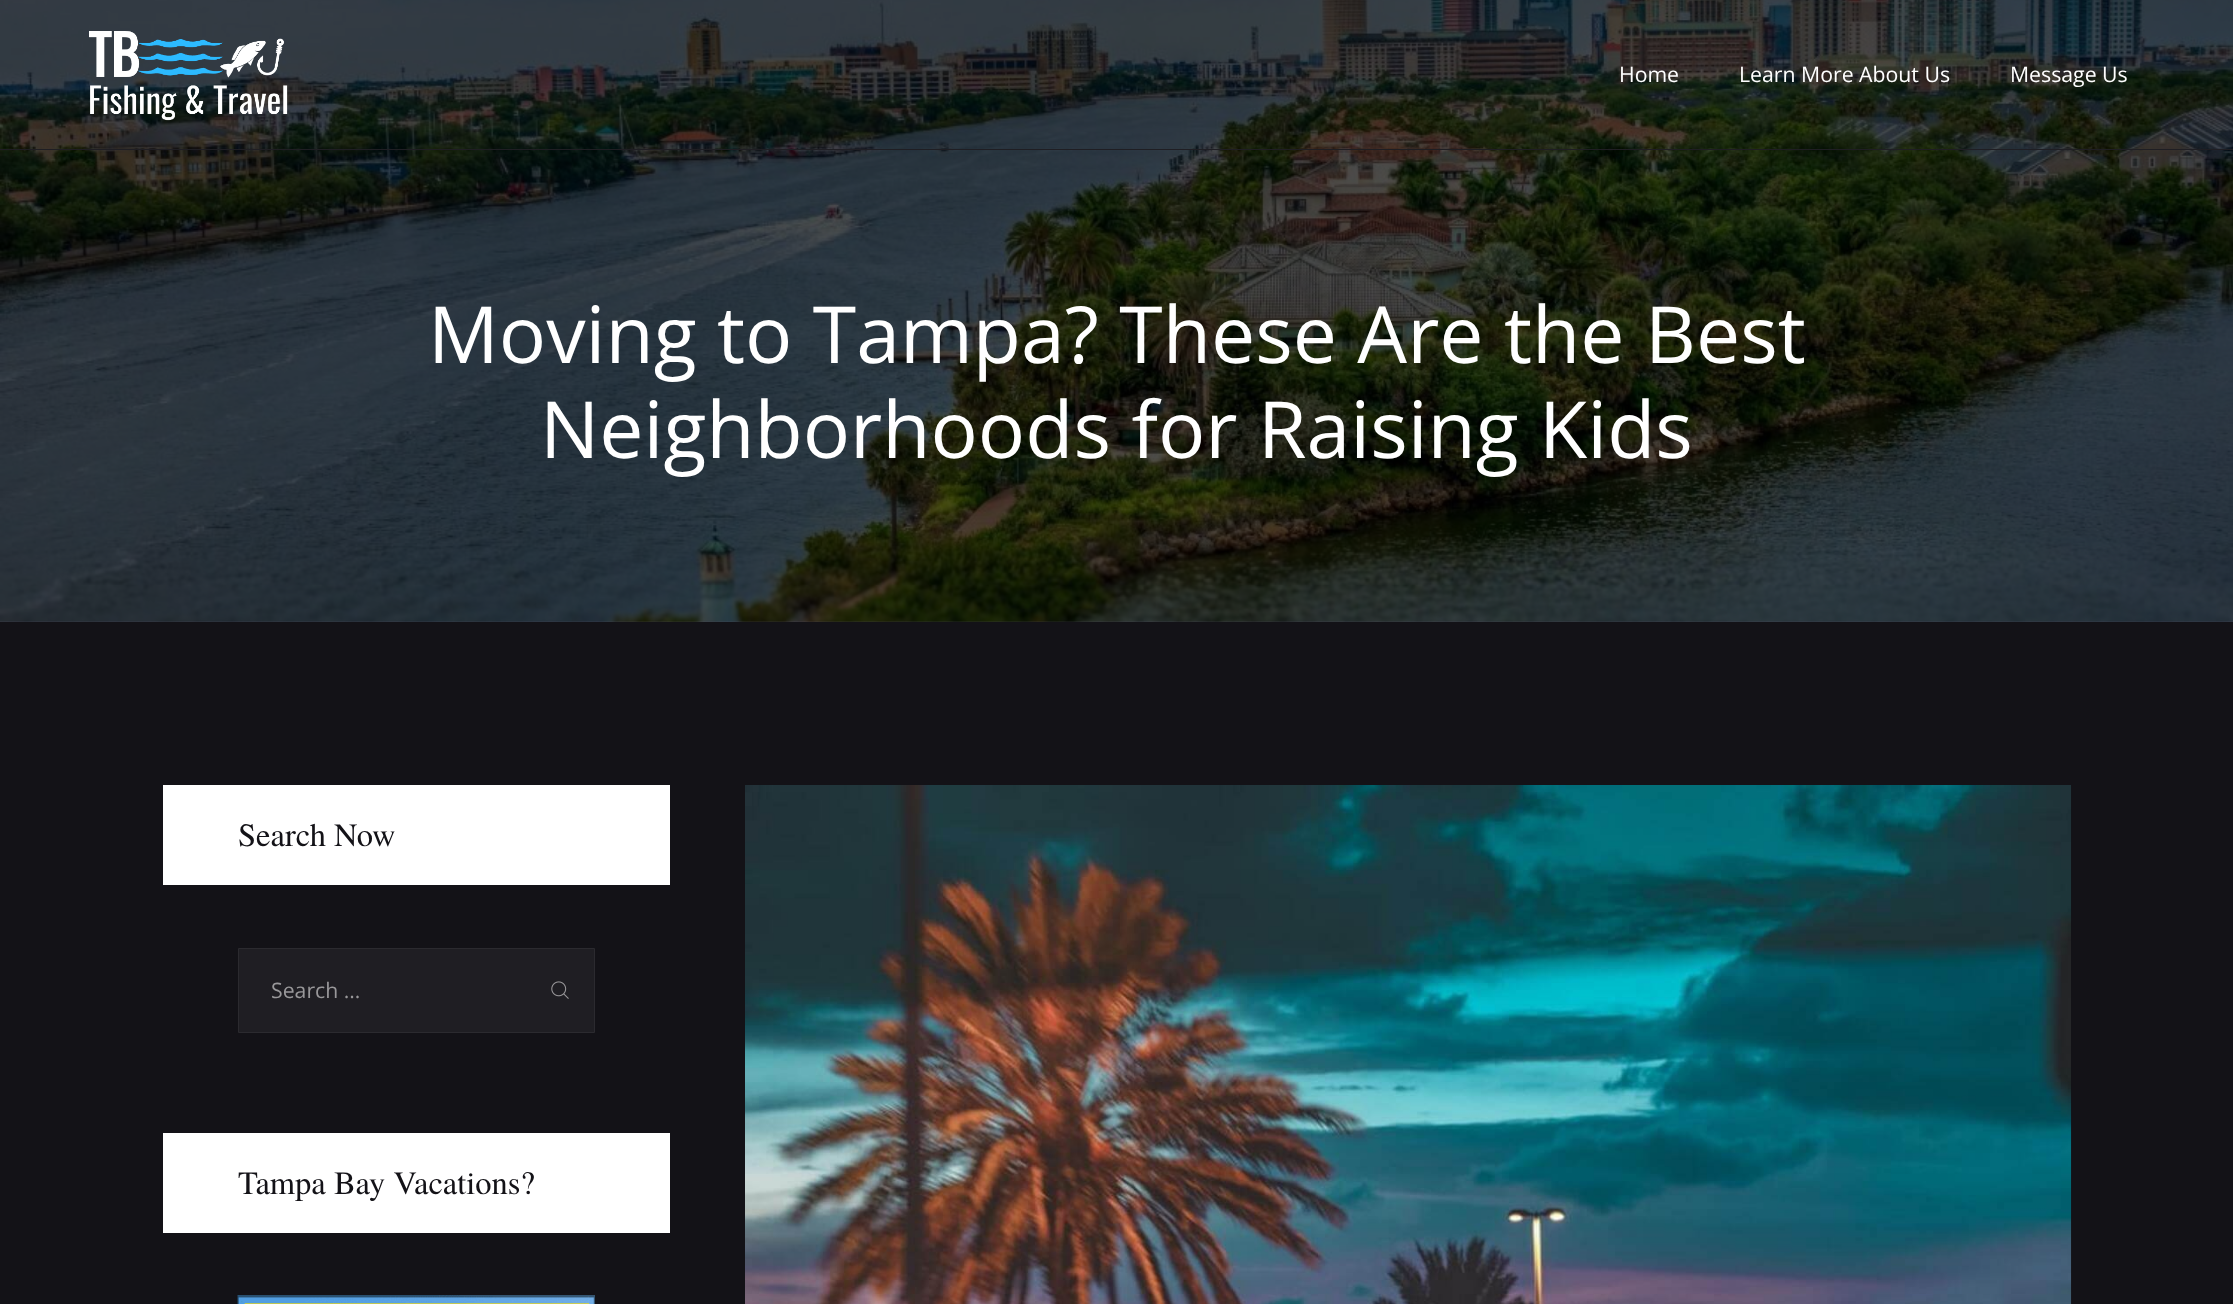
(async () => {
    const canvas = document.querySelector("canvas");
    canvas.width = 2233;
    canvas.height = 1304;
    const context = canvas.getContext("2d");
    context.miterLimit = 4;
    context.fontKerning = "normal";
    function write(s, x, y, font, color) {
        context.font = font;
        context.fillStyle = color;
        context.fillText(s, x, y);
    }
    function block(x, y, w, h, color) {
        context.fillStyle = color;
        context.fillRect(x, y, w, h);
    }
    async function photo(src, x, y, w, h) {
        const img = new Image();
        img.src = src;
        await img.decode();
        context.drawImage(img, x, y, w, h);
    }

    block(0, 0, 2233, 1304, "rgb(19, 18, 23)");
    await photo("media/1.png", 0, 0, 2233, 622);
    block(0, 149, 2233, 1, "rgb(31, 30, 35)");
    await photo("media/2.png", 89, 31, 199, 90);
    write("Home", 1619, 82, "21.25px Open Sans", "rgb(255, 255, 255)");
    write("Learn More About Us", 1739, 82, "21.25px Open Sans", "rgb(255, 255, 255)");
    write("Message Us", 2010, 82, "21.25px Open Sans", "rgb(255, 255, 255)");
    write("Moving to Tampa? These Are the Best", 428, 363, "78.75px Open Sans", "rgb(255, 255, 255)");
    write("Neighborhoods for Raising Kids", 540, 458, "78.75px Open Sans", "rgb(255, 255, 255)");
    block(163, 785, 507, 100, "rgb(255, 255, 255)");
    write("Search Now", 238, 846, "32.5px TeX Gyre Termes", "rgb(19, 18, 23)");
    context.fillStyle = "rgb(31, 30, 35)";
    context.beginPath();
    context.rect(238.5, 948.5, 356, 84);
    context.fill();
    context.strokeStyle = "rgb(43, 42, 47)";
    context.stroke();
    write("Search …", 271, 998, "21.25px Open Sans", "rgb(153, 152, 154)");
    await photo("media/3.png", 551, 981, 18, 18);
    block(163, 1133, 507, 100, "rgb(255, 255, 255)");
    write("Tampa Bay Vacations?", 238, 1194, "32.5px TeX Gyre Termes", "rgb(19, 18, 23)");
    await photo("media/4.png", 237, 1295, 358, 9);
    await photo("media/5.png", 745, 785, 1327, 519);
})();
